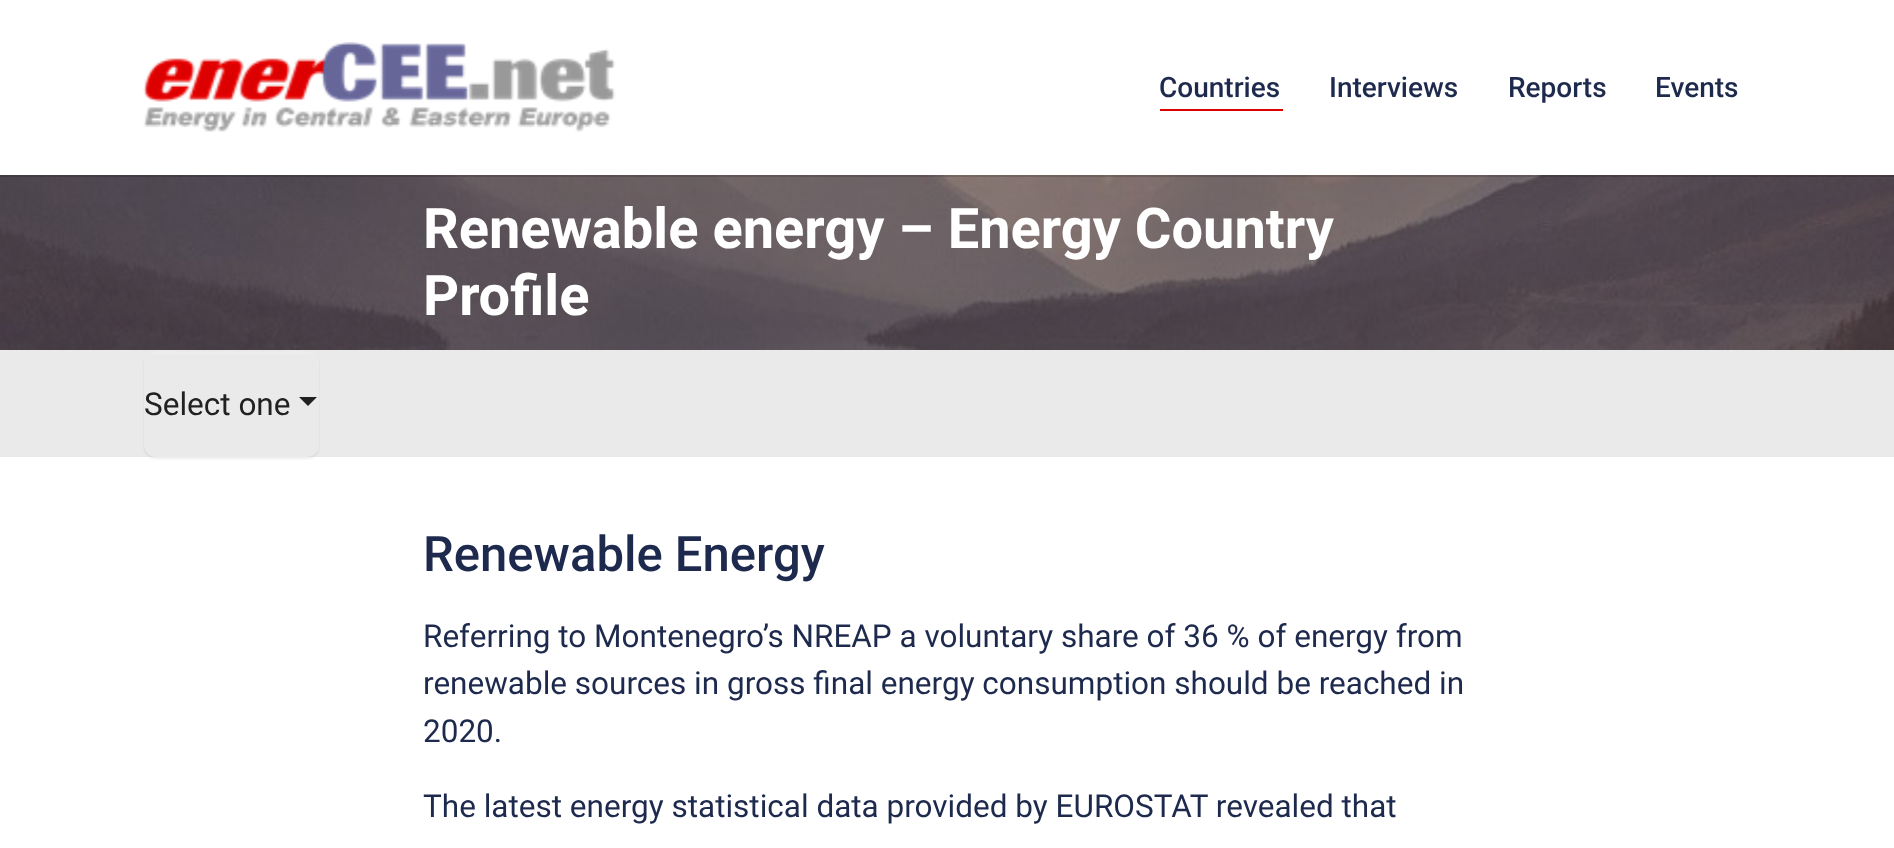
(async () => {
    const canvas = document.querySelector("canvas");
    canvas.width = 1894;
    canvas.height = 848;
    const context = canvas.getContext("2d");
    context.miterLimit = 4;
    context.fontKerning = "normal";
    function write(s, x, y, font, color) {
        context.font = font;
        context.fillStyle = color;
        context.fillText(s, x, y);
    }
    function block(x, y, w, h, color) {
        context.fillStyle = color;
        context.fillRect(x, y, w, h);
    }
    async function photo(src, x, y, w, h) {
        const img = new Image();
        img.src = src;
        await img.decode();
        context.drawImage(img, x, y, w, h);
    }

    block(0, 0, 1894, 848, "rgb(255, 255, 255)");
    await photo("media/2.png", 0, 175, 1894, 175);
    block(0, 175, 1894, 2, "rgba(0, 0, 0, 0.15)");
    await photo("media/1.png", 143, 42, 473, 90);
    write("Countries", 1159, 97, "500 28px Roboto", "rgb(30, 42, 77)");
    block(1160, 109, 123, 2, "rgb(221, 0, 0)");
    write("Interviews", 1329, 97, "500 28px Roboto", "rgb(30, 42, 77)");
    write("Reports", 1508, 97, "500 28px Roboto", "rgb(30, 42, 77)");
    write("Events", 1655, 97, "500 28px Roboto", "rgb(30, 42, 77)");
    write("Renewable energy – Energy Country", 423, 248, "bold 56px Roboto", "rgb(255, 255, 255)");
    write("Profile", 423, 315, "bold 56px Roboto", "rgb(255, 255, 255)");
    block(0, 350, 1894, 107, "rgb(234, 234, 234)");
    context.save();
    context.beginPath();
    context.moveTo(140, 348);
    context.lineTo(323, 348);
    context.lineTo(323, 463);
    context.lineTo(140, 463);
    context.closePath();
    context.moveTo(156, 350);
    context.lineTo(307, 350);
    context.bezierCurveTo(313.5, 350, 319, 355.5, 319, 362);
    context.lineTo(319, 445);
    context.bezierCurveTo(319, 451.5, 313.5, 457, 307, 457);
    context.lineTo(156, 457);
    context.bezierCurveTo(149.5, 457, 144, 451.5, 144, 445);
    context.lineTo(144, 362);
    context.bezierCurveTo(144, 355.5, 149.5, 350, 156, 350);
    context.closePath();
    context.clip("evenodd");
    context.fillStyle = "rgba(0, 0, 0, 0.07)";
    context.filter = "blur(1px)";
    context.beginPath();
    context.roundRect(144, 352, 175, 107, 12);
    context.fill();
    context.filter = "none";
    context.restore();
    context.fillStyle = "rgb(237, 237, 237)";
    context.beginPath();
    context.moveTo(156, 354);
    context.lineTo(306, 354);
    context.bezierCurveTo(312, 354, 317, 358, 317, 364);
    context.bezierCurveTo(317, 346, 291, 352, 281, 352);
    context.lineTo(181, 352);
    context.bezierCurveTo(171, 352, 145, 346, 145, 364);
    context.bezierCurveTo(145, 358, 150, 354, 156, 354);
    context.closePath();
    context.fill();
    write("Select one", 144, 415, "31.5px Roboto", "rgb(33, 33, 33)");
    context.beginPath();
    context.moveTo(299, 397);
    context.lineTo(317, 397);
    context.lineTo(308, 406);
    context.closePath();
    context.fill();
    write("Renewable Energy", 423, 571, "500 49px Roboto", "rgb(30, 42, 77)");
    write("Referring to Montenegro’s NREAP a voluntary share of 36 % of energy from", 423, 647, "31.5px Roboto", "rgb(30, 42, 77)");
    write("renewable sources in gross final energy consumption should be reached in", 423, 694, "31.5px Roboto", "rgb(30, 42, 77)");
    write("2020.", 423, 742, "31.5px Roboto", "rgb(30, 42, 77)");
    write("The latest energy statistical data provided by EUROSTAT revealed that", 423, 817, "31.5px Roboto", "rgb(30, 42, 77)");
})();
